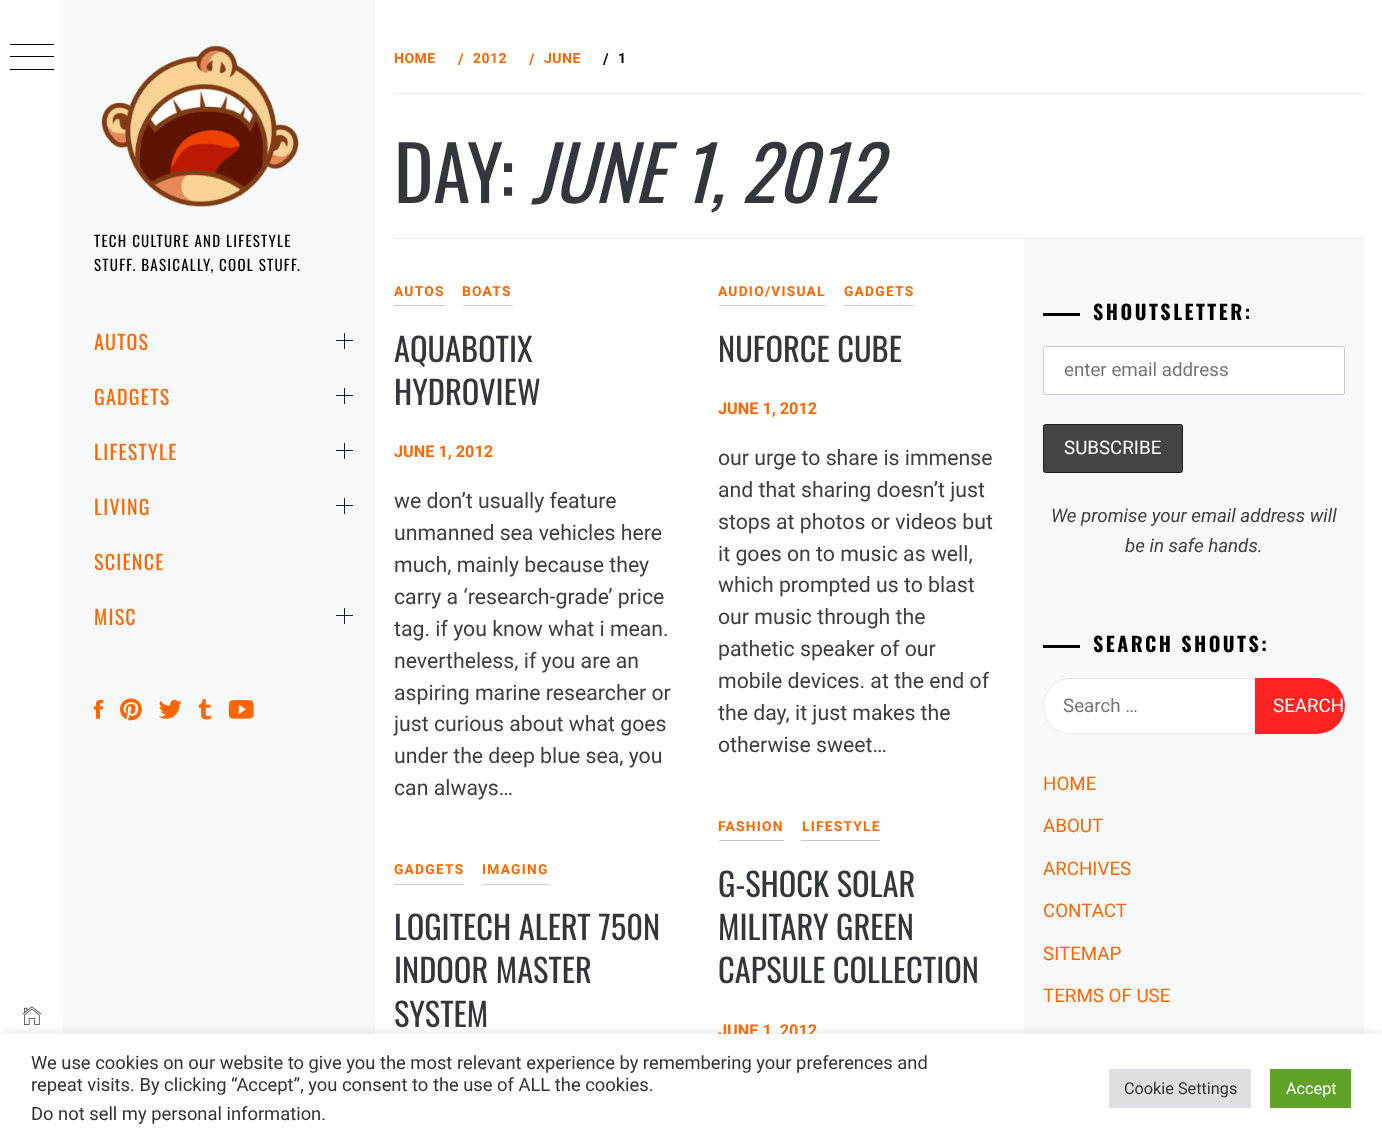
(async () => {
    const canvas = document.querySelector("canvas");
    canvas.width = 1382;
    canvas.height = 1142;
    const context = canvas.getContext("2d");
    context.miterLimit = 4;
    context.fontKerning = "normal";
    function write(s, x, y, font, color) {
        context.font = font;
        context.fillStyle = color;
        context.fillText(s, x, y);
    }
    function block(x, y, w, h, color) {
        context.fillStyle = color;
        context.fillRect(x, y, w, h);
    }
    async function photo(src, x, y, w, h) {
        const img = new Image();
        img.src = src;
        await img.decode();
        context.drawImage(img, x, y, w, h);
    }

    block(0, 0, 1382, 1142, "rgb(255, 255, 255)");
    block(10, 44, 44, 1, "rgb(0, 0, 0)");
    block(10, 56, 44, 1, "rgb(0, 0, 0)");
    block(10, 69, 44, 1, "rgb(0, 0, 0)");
    await photo("media/1.png", 22, 1006, 20, 19);
    block(63, 0, 312, 1034, "rgb(246, 248, 249)");
    await photo("media/2.png", 101, 45, 198, 162);
    context.letterSpacing = "1.25px";
    write("TECH CULTURE AND LIFESTYLE", 94, 247, "15px Oswald", "rgb(0, 0, 0)");
    write("STUFF. BASICALLY, COOL STUFF.", 94, 271, "15px Oswald", "rgb(0, 0, 0)");
    write("AUTOS", 94, 350, "20px Oswald", "rgb(255, 102, 0)");
    block(336, 340, 17, 1, "rgb(21, 32, 53)");
    block(344, 333, 1, 16, "rgb(21, 32, 53)");
    write("GADGETS", 94, 405, "20px Oswald", "rgb(255, 102, 0)");
    block(336, 395, 17, 1, "rgb(21, 32, 53)");
    block(344, 388, 1, 16, "rgb(21, 32, 53)");
    write("LIFESTYLE", 94, 460, "20px Oswald", "rgb(255, 102, 0)");
    block(336, 450, 17, 1, "rgb(21, 32, 53)");
    block(344, 443, 1, 16, "rgb(21, 32, 53)");
    write("LIVING", 94, 515, "20px Oswald", "rgb(255, 102, 0)");
    block(336, 505, 17, 1, "rgb(21, 32, 53)");
    block(344, 498, 1, 16, "rgb(21, 32, 53)");
    write("SCIENCE", 94, 570, "20px Oswald", "rgb(255, 102, 0)");
    write("MISC", 94, 625, "20px Oswald", "rgb(255, 102, 0)");
    block(336, 615, 17, 1, "rgb(21, 32, 53)");
    block(344, 608, 1, 16, "rgb(21, 32, 53)");
    await photo("media/3.png", 93, 700, 11, 19);
    await photo("media/4.png", 120, 698, 22, 23);
    await photo("media/5.png", 159, 700, 23, 19);
    await photo("media/6.png", 198, 699, 14, 21);
    await photo("media/7.png", 228, 700, 26, 19);
    block(394, 238, 970, 1, "rgb(234, 234, 234)");
    block(394, 93, 970, 1, "rgb(234, 234, 234)");
    context.letterSpacing = "0.5px";
    write("HOME", 394, 63, "bold 14px Roboto", "rgb(255, 102, 0)");
    write("/", 458, 64, "bold 15px Roboto", "rgb(255, 102, 0)");
    write("2012", 473, 63, "bold 14px Roboto", "rgb(255, 102, 0)");
    write("/", 529, 64, "bold 15px Roboto", "rgb(255, 102, 0)");
    write("JUNE", 544, 63, "bold 14px Roboto", "rgb(255, 102, 0)");
    write("/", 603, 64, "bold 15px Roboto", "rgb(0, 0, 0)");
    write("1", 618, 63, "bold 14px Roboto", "rgb(0, 0, 0)");
    context.letterSpacing = "0px";
    write("DAY:", 394, 203, "75px Oswald", "rgb(51, 54, 59)");
    write("JUNE 1, 2012", 531, 203, "italic 75px Oswald", "rgb(51, 54, 59)");
    block(394, 305, 51, 1, "rgb(202, 202, 202)");
    context.letterSpacing = "1.25px";
    write("AUTOS", 394, 296, "bold 13.75px Roboto", "rgb(255, 102, 0)");
    block(463, 305, 50, 1, "rgb(202, 202, 202)");
    write("BOATS", 462, 296, "bold 13.75px Roboto", "rgb(255, 102, 0)");
    context.letterSpacing = "0px";
    write("AQUABOTIX", 394, 362, "32.5px Oswald", "rgb(51, 54, 59)");
    write("HYDROVIEW", 394, 405, "32.5px Oswald", "rgb(51, 54, 59)");
    write("JUNE 1, 2012", 394, 457, "bold 16.25px Roboto", "rgb(255, 102, 0)");
    write("we don’t usually feature", 394, 508, "21.25px Roboto", "rgb(62, 63, 64)");
    write("unmanned sea vehicles here", 394, 540, "21.25px Roboto", "rgb(62, 63, 64)");
    write("much, mainly because they", 394, 572, "21.25px Roboto", "rgb(62, 63, 64)");
    write("carry a ‘research-grade’ price", 394, 604, "21.25px Roboto", "rgb(62, 63, 64)");
    write("tag. if you know what i mean.", 394, 636, "21.25px Roboto", "rgb(62, 63, 64)");
    write("nevertheless, if you are an", 394, 668, "21.25px Roboto", "rgb(62, 63, 64)");
    write("aspiring marine researcher or", 394, 700, "21.25px Roboto", "rgb(62, 63, 64)");
    write("just curious about what goes", 394, 731, "21.25px Roboto", "rgb(62, 63, 64)");
    write("under the deep blue sea, you", 394, 763, "21.25px Roboto", "rgb(62, 63, 64)");
    write("can always…", 394, 795, "21.25px Roboto", "rgb(62, 63, 64)");
    block(719, 305, 107, 1, "rgb(202, 202, 202)");
    context.letterSpacing = "1.25px";
    write("AUDIO/VISUAL", 718, 296, "bold 13.75px Roboto", "rgb(255, 102, 0)");
    block(844, 305, 70, 1, "rgb(202, 202, 202)");
    write("GADGETS", 844, 296, "bold 13.75px Roboto", "rgb(255, 102, 0)");
    context.letterSpacing = "0px";
    write("NUFORCE CUBE", 718, 362, "32.5px Oswald", "rgb(51, 54, 59)");
    write("JUNE 1, 2012", 718, 414, "bold 16.25px Roboto", "rgb(255, 102, 0)");
    write("our urge to share is immense", 718, 465, "21.25px Roboto", "rgb(62, 63, 64)");
    write("and that sharing doesn’t just", 718, 497, "21.25px Roboto", "rgb(62, 63, 64)");
    write("stops at photos or videos but", 718, 529, "21.25px Roboto", "rgb(62, 63, 64)");
    write("it goes on to music as well,", 718, 561, "21.25px Roboto", "rgb(62, 63, 64)");
    write("which prompted us to blast", 718, 592, "21.25px Roboto", "rgb(62, 63, 64)");
    write("our music through the", 718, 624, "21.25px Roboto", "rgb(62, 63, 64)");
    write("pathetic speaker of our", 718, 656, "21.25px Roboto", "rgb(62, 63, 64)");
    write("mobile devices. at the end of", 718, 688, "21.25px Roboto", "rgb(62, 63, 64)");
    write("the day, it just makes the", 718, 720, "21.25px Roboto", "rgb(62, 63, 64)");
    write("otherwise sweet…", 718, 752, "21.25px Roboto", "rgb(62, 63, 64)");
    block(394, 884, 70, 1, "rgb(202, 202, 202)");
    context.letterSpacing = "1.25px";
    write("GADGETS", 394, 874, "bold 13.75px Roboto", "rgb(255, 102, 0)");
    block(483, 884, 66, 1, "rgb(202, 202, 202)");
    write("IMAGING", 482, 874, "bold 13.75px Roboto", "rgb(255, 102, 0)");
    context.letterSpacing = "0px";
    write("LOGITECH ALERT 750N", 394, 940, "32.5px Oswald", "rgb(51, 54, 59)");
    write("INDOOR MASTER", 394, 983, "32.5px Oswald", "rgb(51, 54, 59)");
    write("SYSTEM", 394, 1027, "32.5px Oswald", "rgb(51, 54, 59)");
    block(719, 840, 65, 1, "rgb(202, 202, 202)");
    context.letterSpacing = "1.25px";
    write("FASHION", 718, 831, "bold 13.75px Roboto", "rgb(255, 102, 0)");
    block(801, 840, 79, 1, "rgb(202, 202, 202)");
    write("LIFESTYLE", 802, 831, "bold 13.75px Roboto", "rgb(255, 102, 0)");
    context.letterSpacing = "0px";
    write("G-SHOCK SOLAR", 718, 897, "32.5px Oswald", "rgb(51, 54, 59)");
    write("MILITARY GREEN", 718, 940, "32.5px Oswald", "rgb(51, 54, 59)");
    write("CAPSULE COLLECTION", 718, 983, "32.5px Oswald", "rgb(51, 54, 59)");
    write("JUNE 1, 2012", 718, 1036, "bold 16.25px Roboto", "rgb(255, 102, 0)");
    block(1024, 239, 340, 795, "rgb(246, 248, 249)");
    block(1043, 313, 37, 3, "rgb(0, 0, 0)");
    context.letterSpacing = "2.5px";
    write("SHOUTSLETTER:", 1093, 320, "bold 20px Oswald", "rgb(0, 0, 0)");
    context.fillStyle = "rgb(255, 255, 255)";
    context.beginPath();
    context.roundRect(1043.5, 346.5, 301, 48, 2);
    context.fill();
    context.strokeStyle = "rgb(204, 204, 204)";
    context.stroke();
    context.letterSpacing = "0px";
    write("enter email address", 1064, 376, "18.75px Roboto", "rgb(117, 117, 117)");
    context.fillStyle = "rgb(68, 68, 68)";
    context.beginPath();
    context.roundRect(1043.5, 424.5, 139, 48, 2);
    context.fill();
    context.strokeStyle = "rgb(30, 30, 30)";
    context.stroke();
    write("SUBSCRIBE", 1064, 454, "18.75px Roboto", "rgb(255, 255, 255)");
    write("We promise your email address will", 1051, 522, "italic 18.75px Roboto", "rgb(62, 63, 64)");
    write("be in safe hands.", 1125, 552, "italic 18.75px Roboto", "rgb(62, 63, 64)");
    block(1043, 645, 37, 3, "rgb(0, 0, 0)");
    context.letterSpacing = "2.5px";
    write("SEARCH SHOUTS:", 1093, 652, "bold 20px Oswald", "rgb(0, 0, 0)");
    context.fillStyle = "rgb(255, 255, 255)";
    context.beginPath();
    context.roundRect(1043.5, 678.5, 211, 55, [27.5, 0, 0, 27.5]);
    context.fill();
    context.strokeStyle = "rgb(234, 234, 234)";
    context.stroke();
    context.letterSpacing = "0px";
    write("Search …", 1063, 712, "18.75px Roboto", "rgb(117, 117, 117)");
    context.fillStyle = "rgb(255, 34, 34)";
    context.beginPath();
    context.roundRect(1255, 678, 90, 56, [0, 28, 28, 0]);
    context.fill();
    write("SEARCH", 1273, 712, "18.75px Roboto", "rgb(255, 255, 255)");
    write("HOME", 1043, 790, "18.75px Roboto", "rgb(255, 102, 0)");
    write("ABOUT", 1043, 832, "18.75px Roboto", "rgb(255, 102, 0)");
    write("ARCHIVES", 1043, 875, "18.75px Roboto", "rgb(255, 102, 0)");
    write("CONTACT", 1043, 917, "18.75px Roboto", "rgb(255, 102, 0)");
    write("SITEMAP", 1043, 960, "18.75px Roboto", "rgb(255, 102, 0)");
    write("TERMS OF USE", 1043, 1002, "18.75px Roboto", "rgb(255, 102, 0)");
    context.fillStyle = "rgba(172, 171, 171, 0.3)";
    context.filter = "blur(6px)";
    context.beginPath();
    context.rect(0, 1033, 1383, 108);
    context.fill();
    context.filter = "none";
    block(0, 1034, 1382, 108, "rgb(255, 255, 255)");
    write("We use cookies on our website to give you the most relevant experience by remembering your preferences and", 31, 1069, "18.35px Roboto", "rgb(51, 51, 51)");
    write("repeat visits. By clicking “Accept”, you consent to the use of ALL the cookies.", 31, 1091, "18.35px Roboto", "rgb(51, 51, 51)");
    write("Do not sell my personal information.", 31, 1120, "18.35px Roboto", "rgb(51, 51, 51)");
    block(1109, 1069, 142, 39, "rgb(222, 223, 224)");
    write("Cookie Settings", 1124, 1094, "16.25px Roboto", "rgb(51, 51, 51)");
    block(1270, 1069, 81, 39, "rgb(97, 162, 41)");
    write("Accept", 1286, 1094, "16.25px Roboto", "rgb(255, 255, 255)");
})();
